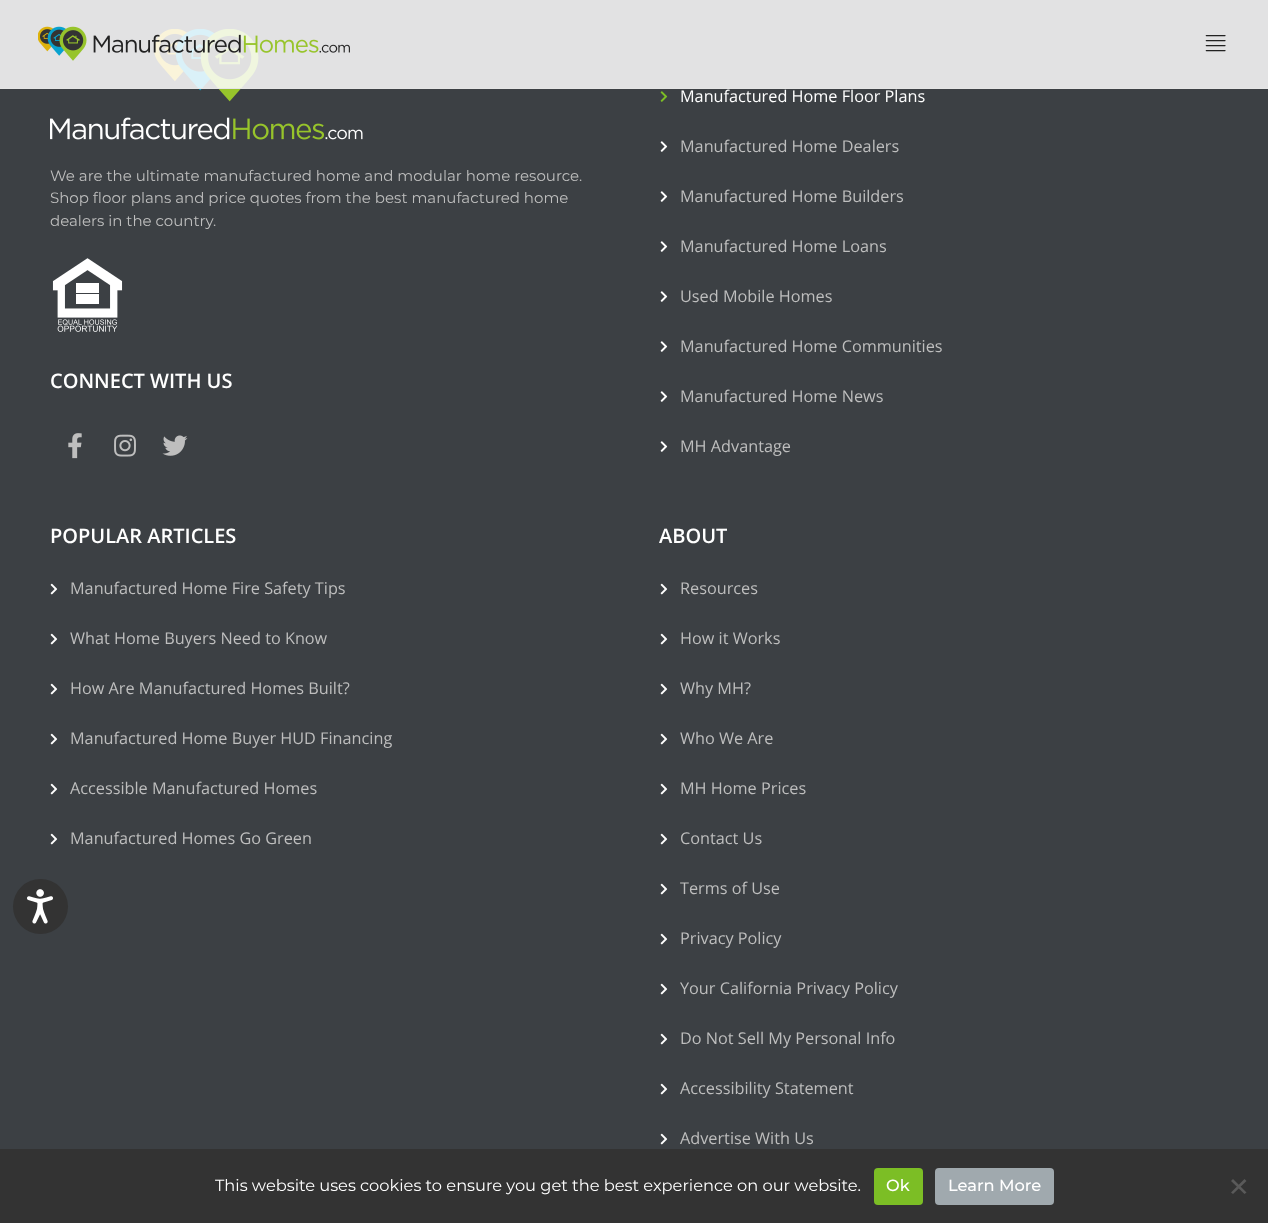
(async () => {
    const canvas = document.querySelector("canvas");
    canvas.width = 1268;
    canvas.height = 1223;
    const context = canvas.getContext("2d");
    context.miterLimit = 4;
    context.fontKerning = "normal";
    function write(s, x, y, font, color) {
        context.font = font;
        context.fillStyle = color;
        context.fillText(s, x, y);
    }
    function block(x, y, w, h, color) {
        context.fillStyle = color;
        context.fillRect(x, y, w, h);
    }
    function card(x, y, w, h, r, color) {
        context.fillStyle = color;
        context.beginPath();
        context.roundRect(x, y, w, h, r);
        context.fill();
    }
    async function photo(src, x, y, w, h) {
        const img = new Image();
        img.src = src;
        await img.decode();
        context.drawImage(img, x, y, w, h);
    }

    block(0, 0, 1268, 1223, "rgb(60, 64, 68)");
    await photo("media/4.png", 50, 29, 313, 111);
    block(0, 0, 1268, 88, "rgba(255, 255, 255, 0.85)");
    block(0, 88, 1268, 1, "rgb(229, 229, 229)");
    await photo("media/1.png", 38, 26, 312, 35);
    await photo("media/2.png", 1205, 35, 21, 17);
    context.fillStyle = "rgb(51, 51, 51)";
    context.beginPath();
    context.arc(40.5, 906.5, 27.5, 0, Math.PI * 2);
    context.fill();
    await photo("media/3.png", 27, 889, 26, 35);
    write("We are the ultimate manufactured home and modular home resource.", 50, 181, "15px Montserrat", "rgb(190, 190, 190)");
    write("Shop floor plans and price quotes from the best manufactured home", 50, 203, "15px Montserrat", "rgb(190, 190, 190)");
    write("dealers in the country.", 50, 226, "15px Montserrat", "rgb(190, 190, 190)");
    await photo("media/5.png", 52, 258, 71, 74);
    write("CONNECT WITH US", 50, 388, "600 20px Open Sans", "rgb(255, 255, 255)");
    await photo("media/6.png", 68, 433, 14, 26);
    await photo("media/7.png", 114, 434, 22, 23);
    await photo("media/8.png", 162, 435, 26, 21);
    await photo("media/9.png", 660, 91, 8, 11);
    write("Manufactured Home Floor Plans", 680, 102, "16.25px Open Sans", "rgb(255, 255, 255)");
    await photo("media/10.png", 660, 141, 8, 11);
    write("Manufactured Home Dealers", 680, 152, "16.25px Open Sans", "rgb(190, 190, 190)");
    await photo("media/10.png", 660, 191, 8, 11);
    write("Manufactured Home Builders", 680, 202, "16.25px Open Sans", "rgb(190, 190, 190)");
    await photo("media/10.png", 660, 241, 8, 11);
    write("Manufactured Home Loans", 680, 252, "16.25px Open Sans", "rgb(190, 190, 190)");
    await photo("media/10.png", 660, 291, 8, 11);
    write("Used Mobile Homes", 680, 302, "16.25px Open Sans", "rgb(190, 190, 190)");
    await photo("media/10.png", 660, 341, 8, 11);
    write("Manufactured Home Communities", 680, 352, "16.25px Open Sans", "rgb(190, 190, 190)");
    await photo("media/10.png", 660, 391, 8, 11);
    write("Manufactured Home News", 680, 402, "16.25px Open Sans", "rgb(190, 190, 190)");
    await photo("media/10.png", 660, 441, 8, 11);
    write("MH Advantage", 680, 452, "16.25px Open Sans", "rgb(190, 190, 190)");
    write("POPULAR ARTICLES", 50, 543, "600 20px Open Sans", "rgb(255, 255, 255)");
    await photo("media/11.png", 50, 583, 8, 12);
    write("Manufactured Home Fire Safety Tips", 70, 594, "16.25px Open Sans", "rgb(190, 190, 190)");
    await photo("media/11.png", 50, 633, 8, 12);
    write("What Home Buyers Need to Know", 70, 644, "16.25px Open Sans", "rgb(190, 190, 190)");
    await photo("media/11.png", 50, 683, 8, 12);
    write("How Are Manufactured Homes Built?", 70, 694, "16.25px Open Sans", "rgb(190, 190, 190)");
    await photo("media/11.png", 50, 733, 8, 12);
    write("Manufactured Home Buyer HUD Financing", 70, 744, "16.25px Open Sans", "rgb(190, 190, 190)");
    await photo("media/11.png", 50, 783, 8, 12);
    write("Accessible Manufactured Homes", 70, 794, "16.25px Open Sans", "rgb(190, 190, 190)");
    await photo("media/11.png", 50, 833, 8, 12);
    write("Manufactured Homes Go Green", 70, 844, "16.25px Open Sans", "rgb(190, 190, 190)");
    write("ABOUT", 659, 543, "600 20px Open Sans", "rgb(255, 255, 255)");
    await photo("media/11.png", 660, 583, 8, 12);
    write("Resources", 680, 594, "16.25px Open Sans", "rgb(190, 190, 190)");
    await photo("media/11.png", 660, 633, 8, 12);
    write("How it Works", 680, 644, "16.25px Open Sans", "rgb(190, 190, 190)");
    await photo("media/11.png", 660, 683, 8, 12);
    write("Why MH?", 680, 694, "16.25px Open Sans", "rgb(190, 190, 190)");
    await photo("media/11.png", 660, 733, 8, 12);
    write("Who We Are", 680, 744, "16.25px Open Sans", "rgb(190, 190, 190)");
    await photo("media/11.png", 660, 783, 8, 12);
    write("MH Home Prices", 680, 794, "16.25px Open Sans", "rgb(190, 190, 190)");
    await photo("media/11.png", 660, 833, 8, 12);
    write("Contact Us", 680, 844, "16.25px Open Sans", "rgb(190, 190, 190)");
    await photo("media/11.png", 660, 883, 8, 12);
    write("Terms of Use", 680, 894, "16.25px Open Sans", "rgb(190, 190, 190)");
    await photo("media/11.png", 660, 933, 8, 12);
    write("Privacy Policy", 680, 944, "16.25px Open Sans", "rgb(190, 190, 190)");
    await photo("media/11.png", 660, 983, 8, 12);
    write("Your California Privacy Policy", 680, 994, "16.25px Open Sans", "rgb(190, 190, 190)");
    await photo("media/11.png", 660, 1033, 8, 12);
    write("Do Not Sell My Personal Info", 680, 1044, "16.25px Open Sans", "rgb(190, 190, 190)");
    await photo("media/11.png", 660, 1083, 8, 12);
    write("Accessibility Statement", 680, 1094, "16.25px Open Sans", "rgb(190, 190, 190)");
    await photo("media/11.png", 660, 1133, 8, 12);
    write("Advertise With Us", 680, 1144, "16.25px Open Sans", "rgb(190, 190, 190)");
    block(0, 1149, 1268, 74, "rgb(51, 51, 51)");
    write("This website uses cookies to ensure you get the best experience on our website.", 215, 1191, "16.25px Montserrat", "rgb(255, 255, 255)");
    card(874, 1168, 49, 37, 4, "rgb(124, 190, 37)");
    write("Ok", 886, 1191, "500 16.25px Montserrat", "rgb(255, 255, 255)");
    card(935, 1168, 119, 37, 4, "rgb(160, 169, 174)");
    write("Learn More", 948, 1191, "500 16.25px Montserrat", "rgb(255, 255, 255)");
    context.fillStyle = "rgb(90, 90, 90)";
    context.beginPath();
    context.moveTo(1244.5, 1179);
    context.lineTo(1246.5, 1181);
    context.lineTo(1233, 1194);
    context.lineTo(1231, 1192.5);
    context.closePath();
    context.fill();
    context.beginPath();
    context.moveTo(1231, 1181);
    context.lineTo(1233, 1179);
    context.lineTo(1246.5, 1192.5);
    context.lineTo(1244.5, 1194);
    context.closePath();
    context.fill();
})();
